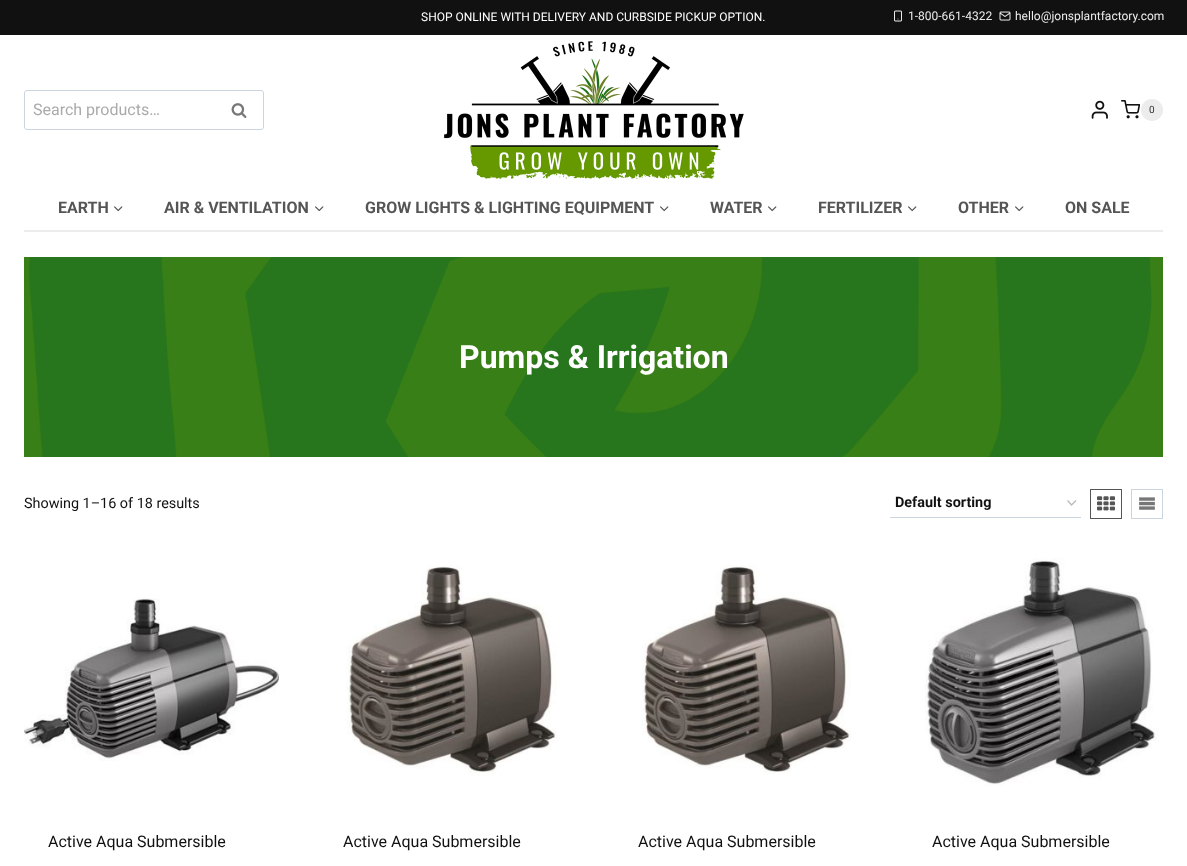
(async () => {
    const canvas = document.querySelector("canvas");
    canvas.width = 1187;
    canvas.height = 866;
    const context = canvas.getContext("2d");
    context.miterLimit = 4;
    context.fontKerning = "normal";
    function write(s, x, y, font, color) {
        context.font = font;
        context.fillStyle = color;
        context.fillText(s, x, y);
    }
    function block(x, y, w, h, color) {
        context.fillStyle = color;
        context.fillRect(x, y, w, h);
    }
    async function photo(src, x, y, w, h) {
        const img = new Image();
        img.src = src;
        await img.decode();
        context.drawImage(img, x, y, w, h);
    }

    block(0, 0, 1187, 866, "rgb(255, 255, 255)");
    block(0, 0, 1187, 35, "rgb(17, 17, 17)");
    write("SHOP ONLINE WITH DELIVERY AND CURBSIDE PICKUP OPTION.", 421, 21, "12px Roboto", "rgb(255, 255, 255)");
    await photo("media/1.png", 894, 10, 8, 12);
    write("1-800-661-4322", 908, 20, "12px Roboto", "rgb(236, 236, 236)");
    await photo("media/2.png", 999, 11, 12, 10);
    write("hello@jonsplantfactory.com", 1015, 20, "12px Roboto", "rgb(236, 236, 236)");
    context.beginPath();
    context.roundRect(24.5, 90.5, 239, 39, 2.5);
    context.strokeStyle = "rgb(203, 213, 224)";
    context.stroke();
    write("Search products…", 33, 115, "16px Roboto", "rgb(170, 170, 170)");
    await photo("media/3.png", 231, 103, 16, 15);
    await photo("media/4.png", 444, 41, 300, 138);
    await photo("media/5.png", 1091, 100, 17, 19);
    await photo("media/6.png", 1121, 100, 19, 19);
    context.fillStyle = "rgb(236, 236, 236)";
    context.beginPath();
    context.arc(1152, 110, 11, 0, Math.PI * 2);
    context.fill();
    write("0", 1149, 113, "10px Roboto", "rgb(51, 51, 51)");
    block(24, 230, 1139, 2, "rgb(236, 236, 236)");
    write("EARTH", 58, 213, "bold 16px Roboto", "rgb(85, 85, 85)");
    await photo("media/7.png", 114, 206, 9, 6);
    write("AIR & VENTILATION", 164, 213, "bold 16px Roboto", "rgb(85, 85, 85)");
    await photo("media/7.png", 315, 206, 9, 6);
    write("GROW LIGHTS & LIGHTING EQUIPMENT", 365, 213, "bold 16px Roboto", "rgb(85, 85, 85)");
    await photo("media/7.png", 660, 206, 9, 6);
    write("WATER", 710, 213, "bold 16px Roboto", "rgb(85, 85, 85)");
    await photo("media/7.png", 768, 206, 9, 6);
    write("FERTILIZER", 818, 213, "bold 16px Roboto", "rgb(85, 85, 85)");
    await photo("media/7.png", 908, 206, 9, 6);
    write("OTHER", 958, 213, "bold 16px Roboto", "rgb(85, 85, 85)");
    await photo("media/7.png", 1015, 206, 9, 6);
    write("ON SALE", 1065, 213, "bold 16px Roboto", "rgb(85, 85, 85)");
    await photo("media/8.png", 24, 257, 1139, 200);
    write("Pumps & Irrigation", 459, 368, "bold 32px Roboto", "rgb(255, 255, 255)");
    write("Showing 1–16 of 18 results", 24, 508, "14.4px Roboto", "rgb(17, 17, 17)");
    context.beginPath();
    context.moveTo(1067.5, 500.5);
    context.lineTo(1071.5, 505);
    context.lineTo(1076, 500.5);
    context.strokeStyle = "rgb(187, 187, 187)";
    context.lineWidth = 1.4;
    context.stroke();
    block(890, 517, 191, 1, "rgb(203, 213, 224)");
    write("Default sorting", 895, 507, "bold 14.4px Roboto", "rgb(17, 17, 17)");
    context.strokeStyle = "rgb(85, 85, 85)";
    context.lineWidth = 1;
    context.strokeRect(1090.5, 489.5, 31, 29);
    await photo("media/9.png", 1097, 496, 18, 15);
    context.strokeStyle = "rgb(203, 213, 224)";
    context.strokeRect(1131.5, 489.5, 31, 29);
    await photo("media/10.png", 1139, 497, 16, 13);
    await photo("media/11.png", 24, 598, 255, 163);
    write("Active Aqua Submersible", 48, 847, "16px Roboto", "rgb(17, 17, 17)");
    await photo("media/12.png", 346, 565, 211, 211);
    write("Active Aqua Submersible", 343, 847, "16px Roboto", "rgb(17, 17, 17)");
    await photo("media/13.png", 641, 565, 210, 210);
    write("Active Aqua Submersible", 638, 847, "16px Roboto", "rgb(17, 17, 17)");
    await photo("media/14.png", 925, 558, 234, 228);
    write("Active Aqua Submersible", 932, 847, "16px Roboto", "rgb(17, 17, 17)");
})();
